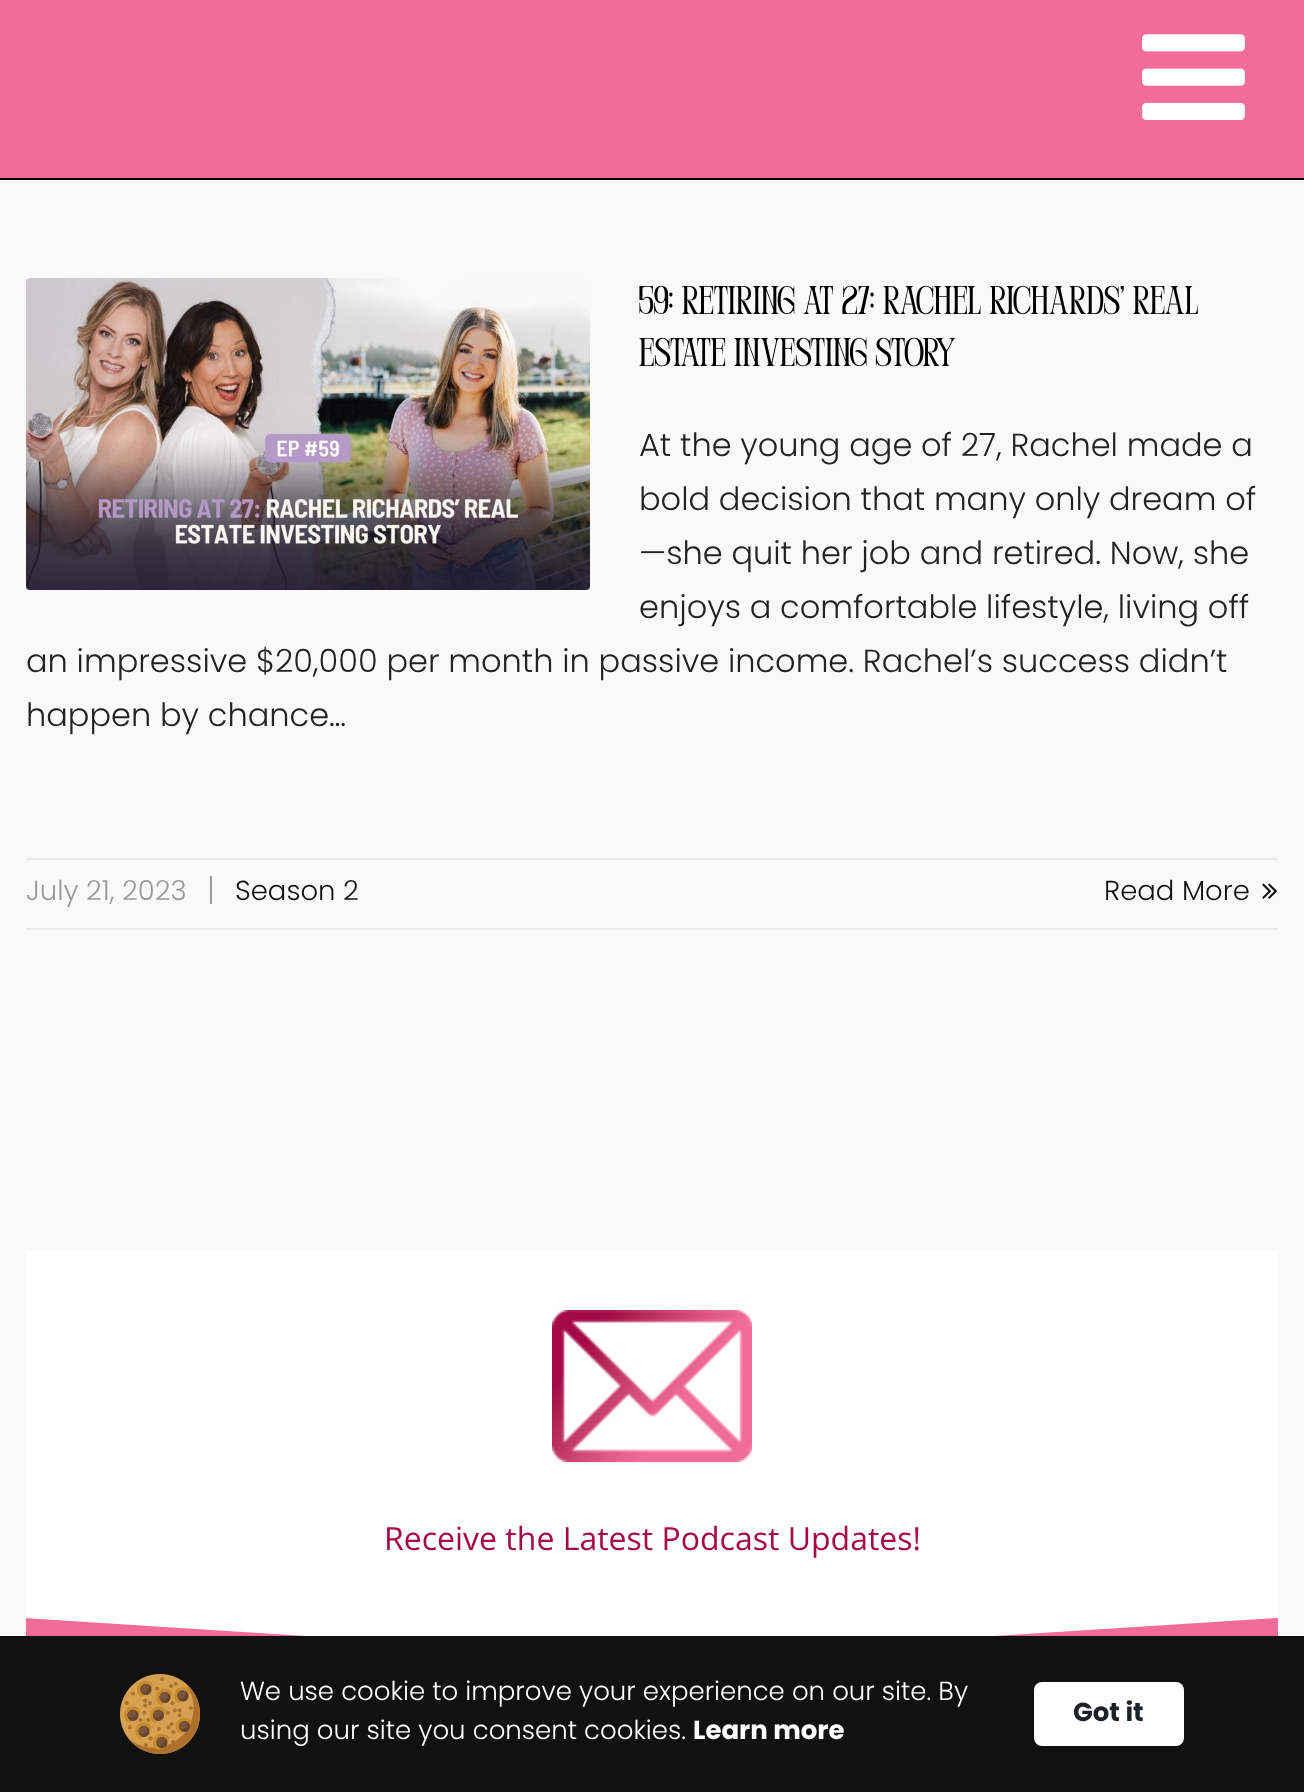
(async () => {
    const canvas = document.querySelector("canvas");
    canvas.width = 1304;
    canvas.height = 1792;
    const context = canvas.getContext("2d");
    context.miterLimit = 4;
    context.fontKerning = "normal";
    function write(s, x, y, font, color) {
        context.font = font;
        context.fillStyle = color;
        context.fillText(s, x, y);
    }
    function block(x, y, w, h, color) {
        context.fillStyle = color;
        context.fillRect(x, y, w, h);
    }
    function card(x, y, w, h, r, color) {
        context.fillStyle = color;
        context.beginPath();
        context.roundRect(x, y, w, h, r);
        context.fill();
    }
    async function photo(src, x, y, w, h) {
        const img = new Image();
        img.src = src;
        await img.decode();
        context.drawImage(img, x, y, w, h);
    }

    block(0, 0, 1304, 1792, "rgb(249, 249, 249)");
    block(0, 0, 1304, 178, "rgb(242, 108, 152)");
    block(0, 178, 1304, 2, "rgb(0, 0, 0)");
    await photo("media/1.png", 1142, 34, 103, 86);
    await photo("media/2.png", 26, 278, 564, 312);
    write("59: Retiring at 27: Rachel Richards’ Real", 639, 314, "40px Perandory", "rgb(0, 0, 0)");
    write("Estate Investing Story", 639, 366, "40px Perandory", "rgb(0, 0, 0)");
    write("At the young age of 27, Rachel made a", 639, 456, "300 32px Poppins", "rgb(34, 34, 34)");
    write("bold decision that many only dream of", 639, 510, "300 32px Poppins", "rgb(34, 34, 34)");
    write("—she quit her job and retired. Now, she", 639, 564, "300 32px Poppins", "rgb(34, 34, 34)");
    write("enjoys a comfortable lifestyle, living off", 639, 618, "300 32px Poppins", "rgb(34, 34, 34)");
    write("an impressive $20,000 per month in passive income. Rachel’s success didn’t", 26, 672, "300 32px Poppins", "rgb(34, 34, 34)");
    write("happen by chance…", 26, 726, "300 32px Poppins", "rgb(34, 34, 34)");
    block(26, 858, 1252, 2, "rgb(235, 235, 235)");
    block(26, 928, 1252, 2, "rgb(235, 235, 235)");
    write("July 21, 2023", 26, 900, "300 27.5px Poppins", "rgb(153, 153, 153)");
    block(210, 876, 2, 28, "rgb(153, 153, 153)");
    write("Season 2", 235, 900, "300 27.5px Poppins", "rgb(17, 17, 17)");
    write("Read More", 1104, 900, "300 27.5px Poppins", "rgb(17, 17, 17)");
    await photo("media/3.png", 1262, 883, 15, 16);
    block(26, 1250, 1252, 368, "rgb(255, 255, 255)");
    await photo("media/4.png", 552, 1310, 200, 152);
    write("Receive the Latest Podcast Updates!", 384, 1550, "32px Open Sans", "rgb(165, 10, 70)");
    block(26, 1618, 1252, 18, "rgb(242, 108, 152)");
    context.fillStyle = "rgb(255, 255, 255)";
    context.beginPath();
    context.moveTo(24, 1618);
    context.lineTo(650, 1658);
    context.lineTo(1276, 1618);
    context.closePath();
    context.fill();
    block(0, 1636, 1304, 156, "rgb(17, 17, 17)");
    await photo("media/5.png", 120, 1674, 80, 80);
    write("We use cookie to improve your experience on our site. By", 240, 1700, "300 26px Poppins", "rgb(255, 255, 255)");
    write("using our site you consent cookies.", 240, 1739, "300 26px Poppins", "rgb(255, 255, 255)");
    write("Learn more", 693, 1739, "bold 26px Poppins", "rgb(255, 255, 255)");
    card(1034, 1682, 150, 64, 8, "rgb(255, 255, 255)");
    write("Got it", 1073, 1721, "bold 26px Poppins", "rgb(29, 33, 41)");
})();
